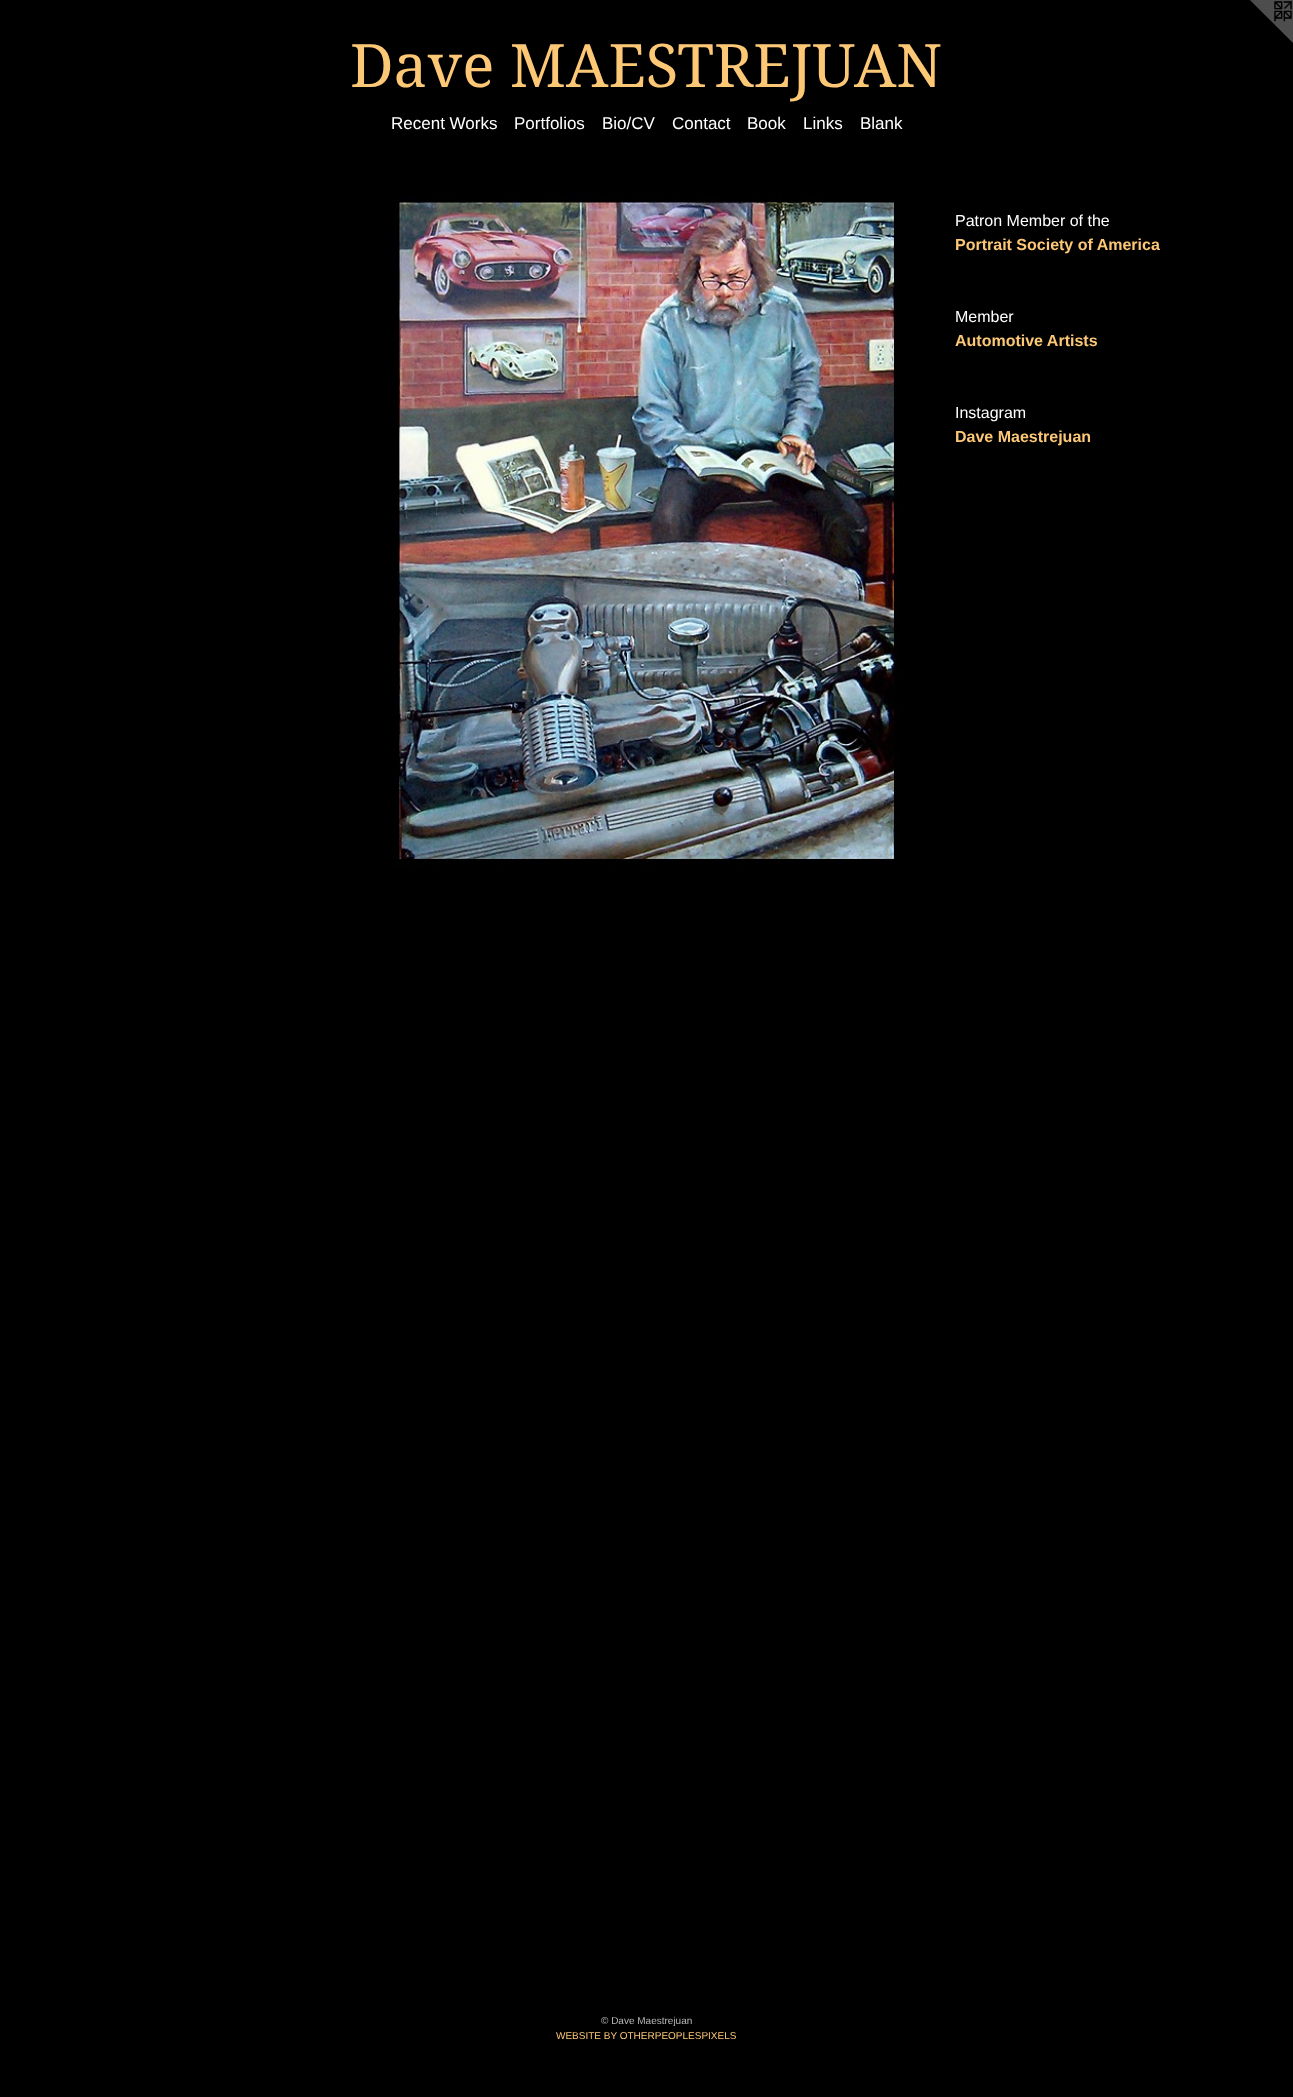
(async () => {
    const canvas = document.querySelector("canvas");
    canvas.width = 1293;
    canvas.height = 2097;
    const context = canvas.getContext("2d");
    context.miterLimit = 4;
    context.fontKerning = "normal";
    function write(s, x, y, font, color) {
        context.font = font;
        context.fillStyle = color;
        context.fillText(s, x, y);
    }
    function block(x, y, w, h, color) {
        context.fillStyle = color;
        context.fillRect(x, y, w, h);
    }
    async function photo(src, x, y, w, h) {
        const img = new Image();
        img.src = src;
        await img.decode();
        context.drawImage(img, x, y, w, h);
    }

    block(0, 0, 1293, 2097, "rgb(0, 0, 0)");
    await photo("media/1.png", 1250, 0, 43, 43);
    write("Dave MAESTREJUAN", 350, 87, "60px Droid Serif", "rgb(253, 200, 118)");
    write("Recent Works", 391, 129, "17px Liberation Sans", "rgb(255, 255, 255)");
    write("Portfolios", 514, 129, "17px Liberation Sans", "rgb(255, 255, 255)");
    write("Bio/CV", 602, 129, "17px Liberation Sans", "rgb(255, 255, 255)");
    write("Contact", 672, 129, "17px Liberation Sans", "rgb(255, 255, 255)");
    write("Book", 747, 129, "17px Liberation Sans", "rgb(255, 255, 255)");
    write("Links", 803, 129, "17px Liberation Sans", "rgb(255, 255, 255)");
    write("Blank", 860, 129, "17px Liberation Sans", "rgb(255, 255, 255)");
    await photo("media/2.png", 391, 194, 509, 673);
    write("Patron Member of the", 955, 226, "16px Liberation Sans", "rgb(255, 255, 255)");
    write("Portrait Society of America", 955, 250, "bold 16px Liberation Sans", "rgb(253, 200, 118)");
    write("Member", 955, 322, "16px Liberation Sans", "rgb(255, 255, 255)");
    write("Automotive Artists", 955, 346, "bold 16px Liberation Sans", "rgb(253, 200, 118)");
    write("Instagram", 955, 418, "16px Liberation Sans", "rgb(255, 255, 255)");
    write("Dave Maestrejuan", 955, 442, "bold 16px Liberation Sans", "rgb(253, 200, 118)");
    write("© Dave Maestrejuan", 601, 2024, "10px Liberation Sans", "rgb(184, 184, 184)");
    write("WEBSITE BY OTHERPEOPLESPIXELS", 556, 2039, "10px Liberation Sans", "rgb(253, 200, 118)");
})();
